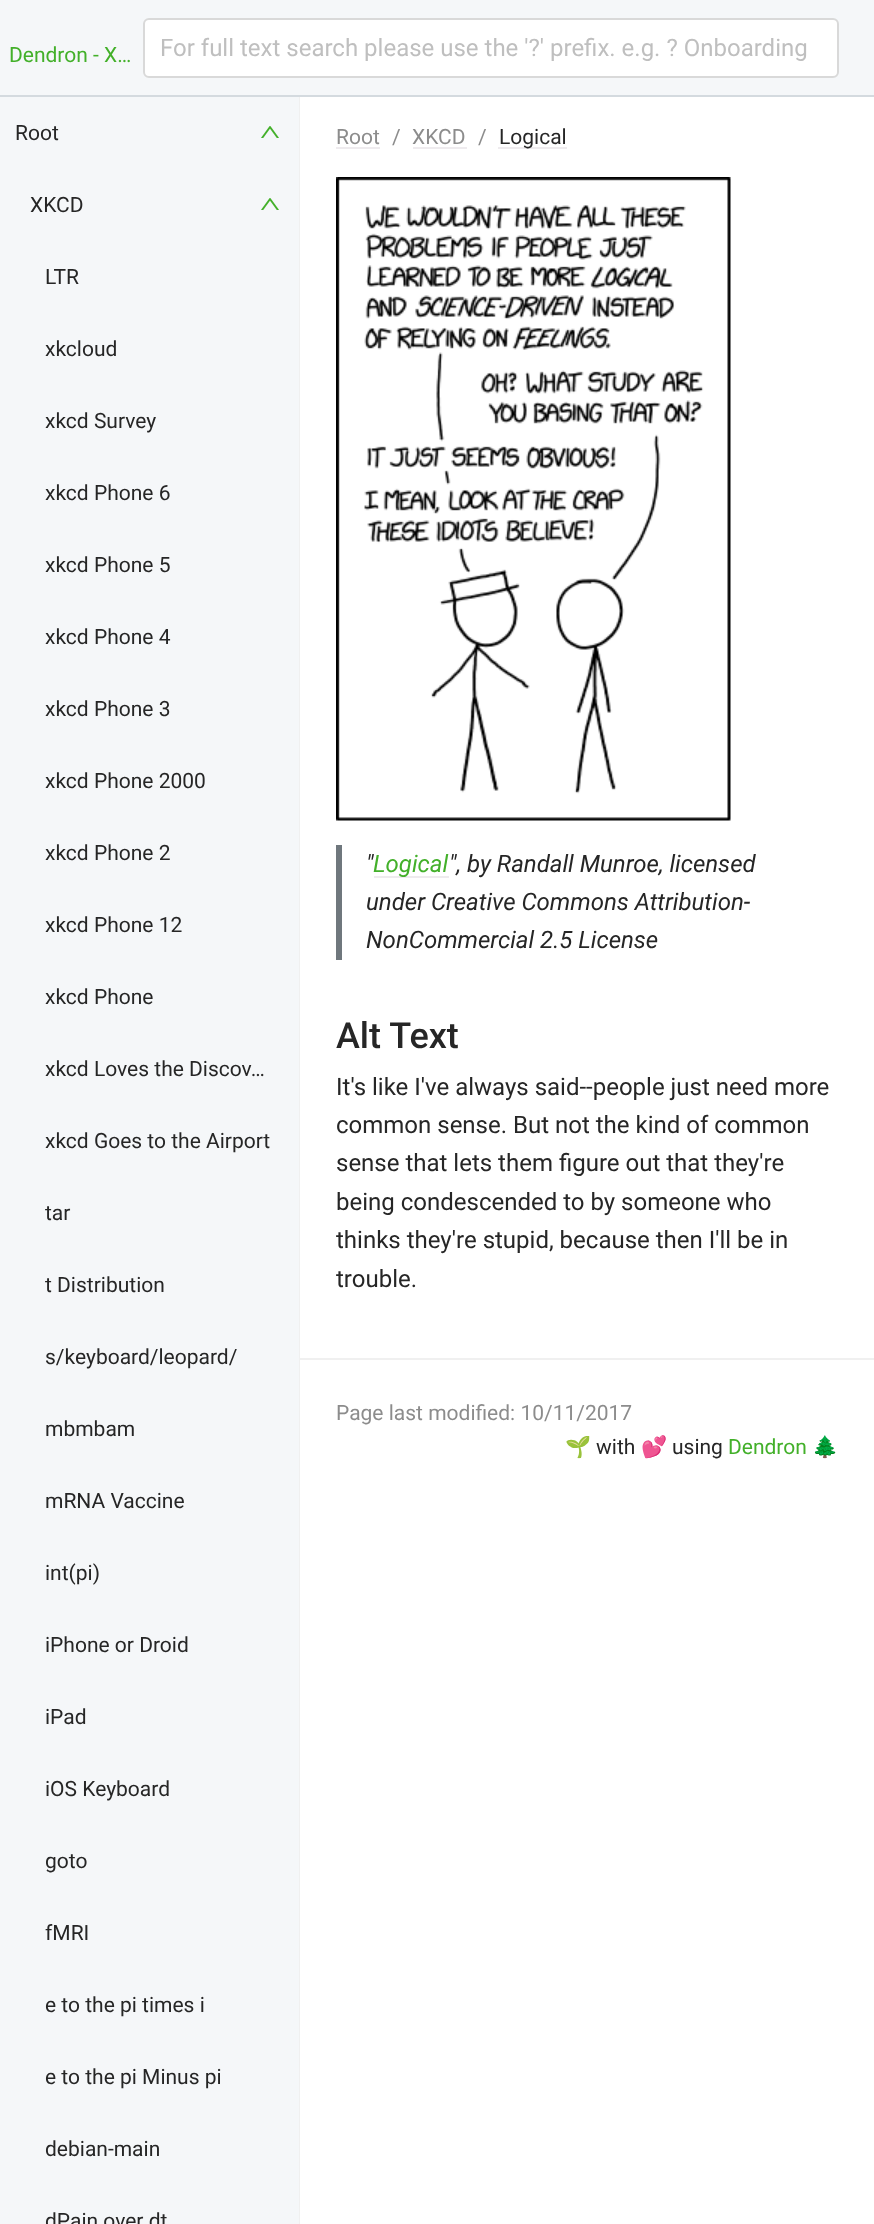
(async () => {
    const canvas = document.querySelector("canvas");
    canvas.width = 874;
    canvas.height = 2224;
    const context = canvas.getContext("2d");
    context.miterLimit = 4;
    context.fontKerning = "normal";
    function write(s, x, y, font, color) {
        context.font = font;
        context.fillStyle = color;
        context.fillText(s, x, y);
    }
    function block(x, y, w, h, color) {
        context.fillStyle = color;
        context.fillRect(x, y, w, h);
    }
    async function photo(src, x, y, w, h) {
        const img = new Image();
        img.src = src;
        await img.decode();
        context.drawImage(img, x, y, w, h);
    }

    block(0, 0, 874, 2224, "rgb(255, 255, 255)");
    block(0, 0, 874, 95, "rgb(245, 247, 249)");
    block(299, 96, 1, 2128, "rgb(240, 240, 240)");
    block(0, 95, 874, 2, "rgb(212, 218, 223)");
    write("Dendron - X…", 9, 62, "21px Roboto", "rgb(67, 176, 42)");
    context.fillStyle = "rgb(255, 255, 255)";
    context.beginPath();
    context.roundRect(144, 19, 694, 58, 5);
    context.fill();
    context.strokeStyle = "rgb(217, 217, 217)";
    context.lineWidth = 2;
    context.stroke();
    write("For full text search please use the '?' prefix. e.g. ? Onboarding", 160, 56, "24px Roboto", "rgb(191, 191, 191)");
    block(0, 97, 299, 2127, "rgb(245, 247, 249)");
    write("Root", 15, 140, "21px Roboto", "rgb(38, 38, 38)");
    await photo("media/1.png", 261, 126, 18, 12);
    write("XKCD", 30, 212, "21px Roboto", "rgb(38, 38, 38)");
    await photo("media/1.png", 261, 198, 18, 12);
    write("LTR", 45, 284, "21px Roboto", "rgb(38, 38, 38)");
    write("xkcloud", 45, 356, "21px Roboto", "rgb(38, 38, 38)");
    write("xkcd Survey", 45, 428, "21px Roboto", "rgb(38, 38, 38)");
    write("xkcd Phone 6", 45, 500, "21px Roboto", "rgb(38, 38, 38)");
    write("xkcd Phone 5", 45, 572, "21px Roboto", "rgb(38, 38, 38)");
    write("xkcd Phone 4", 45, 644, "21px Roboto", "rgb(38, 38, 38)");
    write("xkcd Phone 3", 45, 716, "21px Roboto", "rgb(38, 38, 38)");
    write("xkcd Phone 2000", 45, 788, "21px Roboto", "rgb(38, 38, 38)");
    write("xkcd Phone 2", 45, 860, "21px Roboto", "rgb(38, 38, 38)");
    write("xkcd Phone 12", 45, 932, "21px Roboto", "rgb(38, 38, 38)");
    write("xkcd Phone", 45, 1004, "21px Roboto", "rgb(38, 38, 38)");
    write("xkcd Loves the Discov…", 45, 1076, "21px Roboto", "rgb(38, 38, 38)");
    write("xkcd Goes to the Airport", 45, 1148, "21px Roboto", "rgb(38, 38, 38)");
    write("tar", 45, 1220, "21px Roboto", "rgb(38, 38, 38)");
    write("t Distribution", 45, 1292, "21px Roboto", "rgb(38, 38, 38)");
    write("s/keyboard/leopard/", 45, 1364, "21px Roboto", "rgb(38, 38, 38)");
    write("mbmbam", 45, 1436, "21px Roboto", "rgb(38, 38, 38)");
    write("mRNA Vaccine", 45, 1508, "21px Roboto", "rgb(38, 38, 38)");
    write("int(pi)", 45, 1580, "21px Roboto", "rgb(38, 38, 38)");
    write("iPhone or Droid", 45, 1652, "21px Roboto", "rgb(38, 38, 38)");
    write("iPad", 45, 1724, "21px Roboto", "rgb(38, 38, 38)");
    write("iOS Keyboard", 45, 1796, "21px Roboto", "rgb(38, 38, 38)");
    write("goto", 45, 1868, "21px Roboto", "rgb(38, 38, 38)");
    write("fMRI", 45, 1940, "21px Roboto", "rgb(38, 38, 38)");
    write("e to the pi times i", 45, 2012, "21px Roboto", "rgb(38, 38, 38)");
    write("e to the pi Minus pi", 45, 2084, "21px Roboto", "rgb(38, 38, 38)");
    write("debian-main", 45, 2156, "21px Roboto", "rgb(38, 38, 38)");
    write("dPain over dt", 45, 2228, "21px Roboto", "rgb(38, 38, 38)");
    write("Root", 336, 144, "21px Roboto", "rgb(140, 140, 140)");
    block(336, 147, 44, 2, "rgb(238, 235, 238)");
    write("/", 392, 144, "21px Roboto", "rgb(140, 140, 140)");
    write("XKCD", 412, 144, "21px Roboto", "rgb(140, 140, 140)");
    block(413, 147, 54, 2, "rgb(238, 235, 238)");
    write("/", 478, 144, "21px Roboto", "rgb(140, 140, 140)");
    block(498, 147, 69, 2, "rgb(238, 235, 238)");
    write("Logical", 499, 144, "21px Roboto", "rgb(38, 38, 38)");
    await photo("media/2.png", 336, 177, 395, 644);
    block(336, 845, 6, 115, "rgb(111, 119, 125)");
    write("\"", 366, 872, "italic 24px Roboto", "rgb(38, 38, 38)");
    block(374, 876, 75, 2, "rgb(238, 235, 238)");
    write("Logical", 373, 872, "italic 24px Roboto", "rgb(67, 176, 42)");
    write("\", by Randall Munroe, licensed", 449, 872, "italic 24px Roboto", "rgb(38, 38, 38)");
    write("under Creative Commons Attribution-", 366, 910, "italic 24px Roboto", "rgb(38, 38, 38)");
    write("NonCommercial 2.5 License", 366, 948, "italic 24px Roboto", "rgb(38, 38, 38)");
    write("Alt Text", 336, 1048, "500 36px Roboto", "rgb(38, 38, 38)");
    write("It's like I've always said--people just need more", 336, 1095, "24px Roboto", "rgb(38, 38, 38)");
    write("common sense. But not the kind of common", 336, 1133, "24px Roboto", "rgb(38, 38, 38)");
    write("sense that lets them figure out that they're", 336, 1171, "24px Roboto", "rgb(38, 38, 38)");
    write("being condescended to by someone who", 336, 1210, "24px Roboto", "rgb(38, 38, 38)");
    write("thinks they're stupid, because then I'll be in", 336, 1248, "24px Roboto", "rgb(38, 38, 38)");
    write("trouble.", 336, 1287, "24px Roboto", "rgb(38, 38, 38)");
    block(300, 1358, 574, 2, "rgb(240, 240, 240)");
    write("Page last modified: 10/11/2017", 336, 1420, "21px Roboto", "rgb(140, 140, 140)");
    write("🌱", 565, 1454, "21px Noto Color Emoji", "rgb(38, 38, 38)");
    write("with", 596, 1454, "21px Roboto", "rgb(38, 38, 38)");
    write("💕", 641, 1454, "21px Noto Color Emoji", "rgb(38, 38, 38)");
    write("using", 672, 1454, "21px Roboto", "rgb(38, 38, 38)");
    write("Dendron", 728, 1454, "21px Roboto", "rgb(67, 176, 42)");
    write("🌲", 812, 1454, "21px Noto Color Emoji", "rgb(67, 176, 42)");
})();
